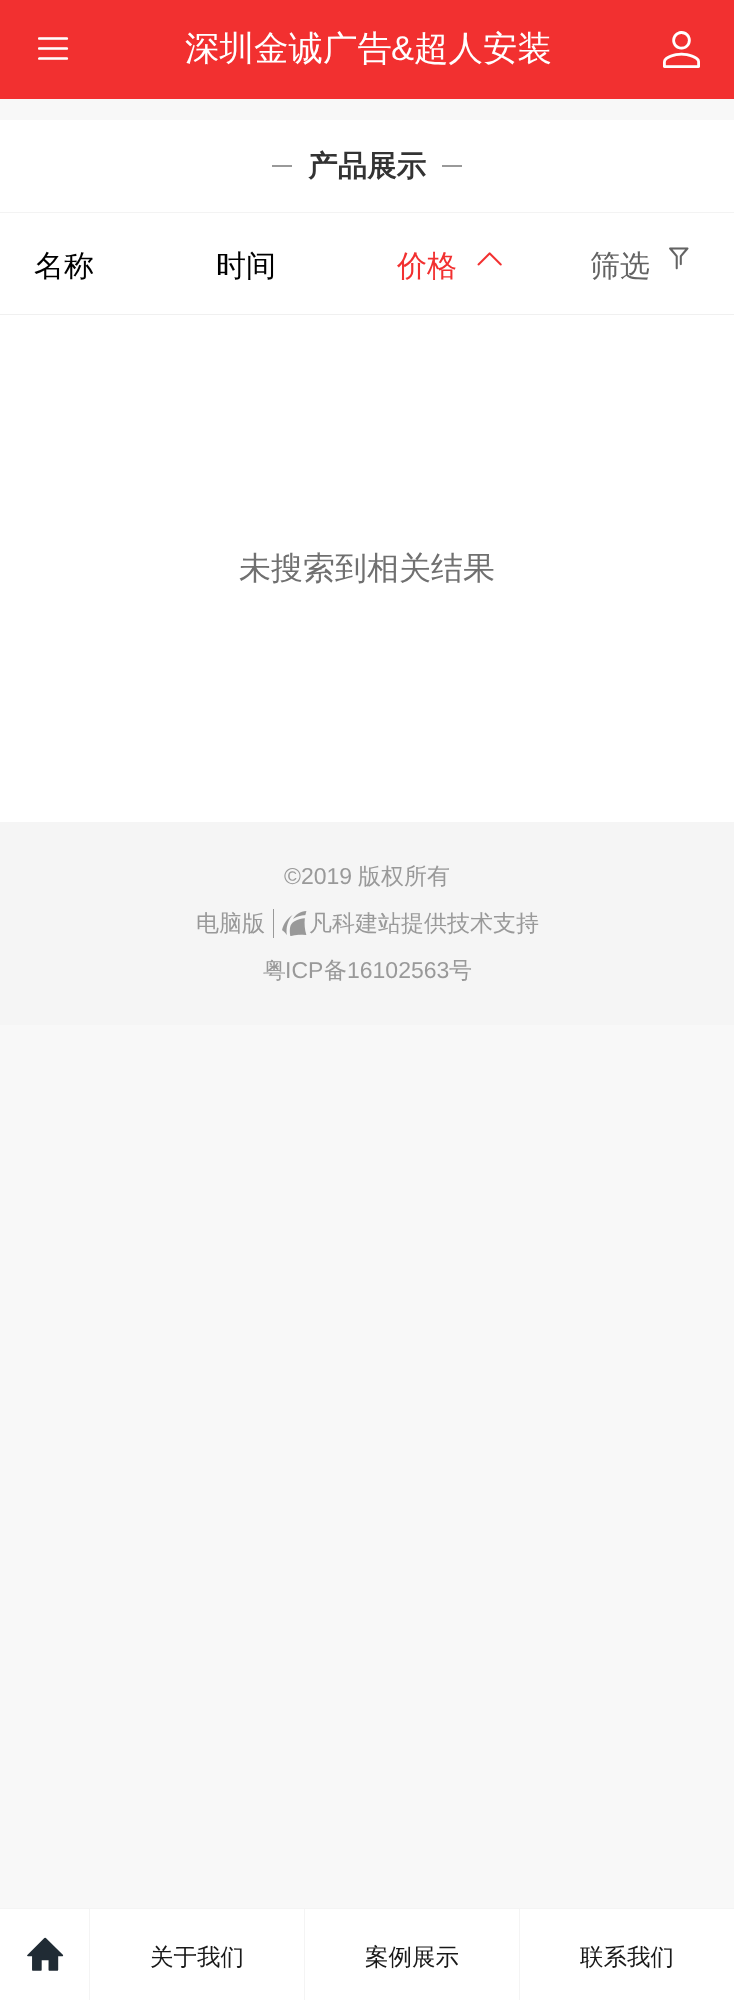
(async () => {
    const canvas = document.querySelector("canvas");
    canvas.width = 734;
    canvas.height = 2000;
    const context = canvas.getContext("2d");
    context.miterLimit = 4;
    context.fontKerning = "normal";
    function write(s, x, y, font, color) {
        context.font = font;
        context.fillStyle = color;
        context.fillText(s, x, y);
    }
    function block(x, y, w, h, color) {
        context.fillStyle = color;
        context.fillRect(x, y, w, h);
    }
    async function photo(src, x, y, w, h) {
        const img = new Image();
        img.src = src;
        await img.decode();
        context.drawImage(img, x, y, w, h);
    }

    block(0, 0, 734, 2000, "rgb(248, 248, 248)");
    block(0, 0, 734, 99, "rgb(242, 48, 48)");
    write("򰌶", 38, 61, "30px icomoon", "rgb(255, 255, 255)");
    write("深圳金诚广告", 185, 60, "500 34.5px WenQuanYi Zen Hei", "rgb(255, 255, 255)");
    write("&", 391, 60, "34.5px Liberation Sans", "rgb(255, 255, 255)");
    write("超人安装", 414, 60, "500 34.5px WenQuanYi Zen Hei", "rgb(255, 255, 255)");
    write("򰊈", 663, 65, "37px icomoon", "rgb(255, 255, 255)");
    block(0, 120, 734, 92, "rgb(255, 255, 255)");
    block(0, 212, 734, 1, "rgb(243, 243, 243)");
    block(272, 165, 20, 2, "rgb(153, 153, 153)");
    write("产品展示", 308, 176, "bold 29.5px WenQuanYi Zen Hei", "rgb(51, 51, 51)");
    block(442, 165, 20, 2, "rgb(153, 153, 153)");
    block(0, 213, 734, 609, "rgb(255, 255, 255)");
    write("名称", 34, 276, "500 30px WenQuanYi Zen Hei", "rgb(0, 0, 0)");
    write("时间", 216, 276, "500 30px WenQuanYi Zen Hei", "rgb(0, 0, 0)");
    write("价格", 397, 276, "500 30px WenQuanYi Zen Hei", "rgb(242, 48, 48)");
    await photo("media/1.png", 477, 252, 25, 14);
    write("筛选", 590, 276, "500 30px WenQuanYi Zen Hei", "rgb(99, 99, 99)");
    await photo("media/2.png", 669, 247, 20, 23);
    block(0, 314, 734, 1, "rgb(240, 240, 240)");
    write("未搜索到相关结果", 239, 579, "500 32px WenQuanYi Zen Hei", "rgb(112, 112, 112)");
    block(0, 822, 734, 203, "rgb(245, 245, 245)");
    write("©2019", 284, 884, "23px Liberation Sans", "rgb(153, 153, 153)");
    write("版权所有", 358, 884, "500 23px WenQuanYi Zen Hei", "rgb(153, 153, 153)");
    write("电脑版", 196, 931, "500 23px WenQuanYi Zen Hei", "rgb(153, 153, 153)");
    block(273, 909, 1, 29, "rgb(153, 153, 153)");
    await photo("media/3.png", 282, 911, 25, 25);
    write("凡科建站提供技术支持", 309, 931, "500 23px WenQuanYi Zen Hei", "rgb(153, 153, 153)");
    write("粤", 263, 978, "500 23px WenQuanYi Zen Hei", "rgb(153, 153, 153)");
    write("ICP", 285, 978, "23px Liberation Sans", "rgb(153, 153, 153)");
    write("备", 324, 978, "500 23px WenQuanYi Zen Hei", "rgb(153, 153, 153)");
    write("16102563", 347, 978, "23px Liberation Sans", "rgb(153, 153, 153)");
    write("号", 449, 978, "500 23px WenQuanYi Zen Hei", "rgb(153, 153, 153)");
    block(0, 1909, 734, 91, "rgb(255, 255, 255)");
    block(0, 1908, 734, 1, "rgb(244, 244, 244)");
    block(89, 1909, 1, 91, "rgb(244, 244, 244)");
    write("򠡁", 27, 1970, "36px icomoon", "rgb(32, 43, 52)");
    block(304, 1909, 1, 91, "rgb(244, 244, 244)");
    write("关于我们", 150, 1965, "500 23.5px WenQuanYi Zen Hei", "rgb(25, 25, 25)");
    block(519, 1909, 1, 91, "rgb(244, 244, 244)");
    write("案例展示", 365, 1965, "500 23.5px WenQuanYi Zen Hei", "rgb(25, 25, 25)");
    write("联系我们", 580, 1965, "500 23.5px WenQuanYi Zen Hei", "rgb(25, 25, 25)");
})();
